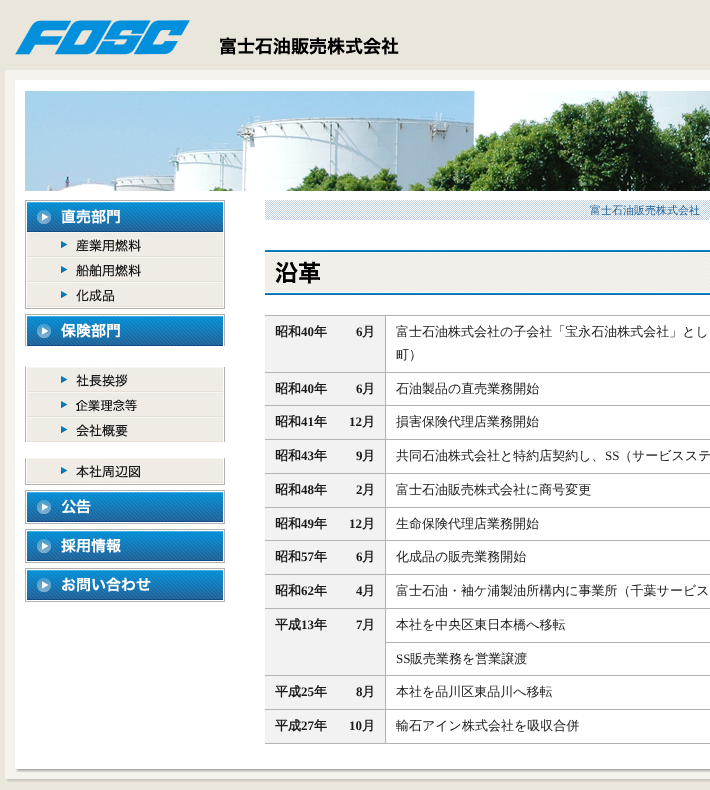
(async () => {
    const canvas = document.querySelector("canvas");
    canvas.width = 710;
    canvas.height = 790;
    const context = canvas.getContext("2d");
    context.miterLimit = 4;
    context.fontKerning = "normal";
    function write(s, x, y, font, color) {
        context.font = font;
        context.fillStyle = color;
        context.fillText(s, x, y);
    }
    function block(x, y, w, h, color) {
        context.fillStyle = color;
        context.fillRect(x, y, w, h);
    }
    async function photo(src, x, y, w, h) {
        const img = new Image();
        img.src = src;
        await img.decode();
        context.drawImage(img, x, y, w, h);
    }

    block(0, 0, 710, 790, "rgb(235, 230, 220)");
    await photo("media/1.png", 5, 70, 705, 130);
    await photo("media/2.png", 15, 20, 384, 35);
    await photo("media/3.png", 25, 91, 685, 100);
    await photo("media/4.png", 5, 200, 705, 569);
    await photo("media/5.png", 25, 200, 200, 32);
    await photo("media/6.png", 25, 232, 200, 25);
    await photo("media/7.png", 25, 257, 200, 25);
    await photo("media/8.png", 25, 282, 200, 27);
    await photo("media/9.png", 25, 314, 200, 32);
    await photo("media/10.png", 25, 367, 200, 25);
    await photo("media/11.png", 25, 392, 200, 25);
    await photo("media/12.png", 25, 417, 200, 25);
    await photo("media/13.png", 25, 458, 200, 27);
    await photo("media/14.png", 25, 490, 200, 34);
    await photo("media/15.png", 25, 529, 200, 34);
    await photo("media/16.png", 25, 568, 200, 34);
    await photo("media/17.png", 265, 200, 445, 20);
    write("富士石油販売株式会社", 590, 214, "500 11px WenQuanYi Zen Hei", "rgb(30, 95, 150)");
    await photo("media/18.png", 265, 250, 445, 45);
    block(265, 315, 445, 1, "rgb(178, 178, 178)");
    block(265, 316, 120, 56, "rgb(242, 242, 242)");
    block(265, 372, 80, 1, "rgb(178, 178, 178)");
    write("昭和", 275, 336, "bold 13px WenQuanYi Zen Hei", "rgb(26, 26, 26)");
    write("40", 301, 336, "bold 13px Liberation Serif", "rgb(26, 26, 26)");
    write("年", 314, 336, "bold 13px WenQuanYi Zen Hei", "rgb(26, 26, 26)");
    block(385, 316, 1, 428, "rgb(178, 178, 178)");
    block(345, 372, 365, 1, "rgb(178, 178, 178)");
    write("6", 356, 336, "bold 13px Liberation Serif", "rgb(26, 26, 26)");
    write("月", 362, 336, "bold 13px WenQuanYi Zen Hei", "rgb(26, 26, 26)");
    write("富士石油株式会社の子会社「宝永石油株式会社」とし", 396, 336, "500 13px WenQuanYi Zen Hei", "rgb(26, 26, 26)");
    write("町）", 396, 359, "500 13px WenQuanYi Zen Hei", "rgb(26, 26, 26)");
    block(265, 373, 120, 32, "rgb(242, 242, 242)");
    block(265, 405, 445, 1, "rgb(178, 178, 178)");
    write("昭和", 275, 393, "bold 13px WenQuanYi Zen Hei", "rgb(26, 26, 26)");
    write("40", 301, 393, "bold 13px Liberation Serif", "rgb(26, 26, 26)");
    write("年", 314, 393, "bold 13px WenQuanYi Zen Hei", "rgb(26, 26, 26)");
    write("6", 356, 393, "bold 13px Liberation Serif", "rgb(26, 26, 26)");
    write("月", 362, 393, "bold 13px WenQuanYi Zen Hei", "rgb(26, 26, 26)");
    write("石油製品の直売業務開始", 396, 393, "500 13px WenQuanYi Zen Hei", "rgb(26, 26, 26)");
    block(265, 406, 120, 33, "rgb(242, 242, 242)");
    block(265, 439, 445, 1, "rgb(178, 178, 178)");
    write("昭和", 275, 426, "bold 13px WenQuanYi Zen Hei", "rgb(26, 26, 26)");
    write("41", 301, 426, "bold 13px Liberation Serif", "rgb(26, 26, 26)");
    write("年", 314, 426, "bold 13px WenQuanYi Zen Hei", "rgb(26, 26, 26)");
    write("12", 349, 426, "bold 13px Liberation Serif", "rgb(26, 26, 26)");
    write("月", 362, 426, "bold 13px WenQuanYi Zen Hei", "rgb(26, 26, 26)");
    write("損害保険代理店業務開始", 396, 426, "500 13px WenQuanYi Zen Hei", "rgb(26, 26, 26)");
    block(265, 440, 120, 33, "rgb(242, 242, 242)");
    block(265, 473, 445, 1, "rgb(178, 178, 178)");
    write("昭和", 275, 460, "bold 13px WenQuanYi Zen Hei", "rgb(26, 26, 26)");
    write("43", 301, 460, "bold 13px Liberation Serif", "rgb(26, 26, 26)");
    write("年", 314, 460, "bold 13px WenQuanYi Zen Hei", "rgb(26, 26, 26)");
    write("9", 356, 460, "bold 13px Liberation Serif", "rgb(26, 26, 26)");
    write("月", 362, 460, "bold 13px WenQuanYi Zen Hei", "rgb(26, 26, 26)");
    write("共同石油株式会社と特約店契約し、", 396, 460, "500 13px WenQuanYi Zen Hei", "rgb(26, 26, 26)");
    write("SS", 605, 460, "13px Liberation Serif", "rgb(26, 26, 26)");
    write("（サービスステ", 619, 460, "500 13px WenQuanYi Zen Hei", "rgb(26, 26, 26)");
    block(265, 474, 120, 33, "rgb(242, 242, 242)");
    block(265, 507, 445, 1, "rgb(178, 178, 178)");
    write("昭和", 275, 494, "bold 13px WenQuanYi Zen Hei", "rgb(26, 26, 26)");
    write("48", 301, 494, "bold 13px Liberation Serif", "rgb(26, 26, 26)");
    write("年", 314, 494, "bold 13px WenQuanYi Zen Hei", "rgb(26, 26, 26)");
    write("2", 356, 494, "bold 13px Liberation Serif", "rgb(26, 26, 26)");
    write("月", 362, 494, "bold 13px WenQuanYi Zen Hei", "rgb(26, 26, 26)");
    write("富士石油販売株式会社に商号変更", 396, 494, "500 13px WenQuanYi Zen Hei", "rgb(26, 26, 26)");
    block(265, 508, 120, 32, "rgb(242, 242, 242)");
    block(265, 540, 445, 1, "rgb(178, 178, 178)");
    write("昭和", 275, 528, "bold 13px WenQuanYi Zen Hei", "rgb(26, 26, 26)");
    write("49", 301, 528, "bold 13px Liberation Serif", "rgb(26, 26, 26)");
    write("年", 314, 528, "bold 13px WenQuanYi Zen Hei", "rgb(26, 26, 26)");
    write("12", 349, 528, "bold 13px Liberation Serif", "rgb(26, 26, 26)");
    write("月", 362, 528, "bold 13px WenQuanYi Zen Hei", "rgb(26, 26, 26)");
    write("生命保険代理店業務開始", 396, 528, "500 13px WenQuanYi Zen Hei", "rgb(26, 26, 26)");
    block(265, 541, 120, 33, "rgb(242, 242, 242)");
    block(265, 574, 445, 1, "rgb(178, 178, 178)");
    write("昭和", 275, 561, "bold 13px WenQuanYi Zen Hei", "rgb(26, 26, 26)");
    write("57", 301, 561, "bold 13px Liberation Serif", "rgb(26, 26, 26)");
    write("年", 314, 561, "bold 13px WenQuanYi Zen Hei", "rgb(26, 26, 26)");
    write("6", 356, 561, "bold 13px Liberation Serif", "rgb(26, 26, 26)");
    write("月", 362, 561, "bold 13px WenQuanYi Zen Hei", "rgb(26, 26, 26)");
    write("化成品の販売業務開始", 396, 561, "500 13px WenQuanYi Zen Hei", "rgb(26, 26, 26)");
    block(265, 575, 120, 33, "rgb(242, 242, 242)");
    block(265, 608, 445, 1, "rgb(178, 178, 178)");
    write("昭和", 275, 595, "bold 13px WenQuanYi Zen Hei", "rgb(26, 26, 26)");
    write("62", 301, 595, "bold 13px Liberation Serif", "rgb(26, 26, 26)");
    write("年", 314, 595, "bold 13px WenQuanYi Zen Hei", "rgb(26, 26, 26)");
    write("4", 356, 595, "bold 13px Liberation Serif", "rgb(26, 26, 26)");
    write("月", 362, 595, "bold 13px WenQuanYi Zen Hei", "rgb(26, 26, 26)");
    write("富士石油・袖ケ浦製油所構内に事業所（千葉サービス", 396, 595, "500 13px WenQuanYi Zen Hei", "rgb(26, 26, 26)");
    block(265, 609, 120, 66, "rgb(242, 242, 242)");
    block(265, 675, 445, 1, "rgb(178, 178, 178)");
    write("平成", 275, 629, "bold 13px WenQuanYi Zen Hei", "rgb(26, 26, 26)");
    write("13", 301, 629, "bold 13px Liberation Serif", "rgb(26, 26, 26)");
    write("年", 314, 629, "bold 13px WenQuanYi Zen Hei", "rgb(26, 26, 26)");
    write("7", 356, 629, "bold 13px Liberation Serif", "rgb(26, 26, 26)");
    write("月", 362, 629, "bold 13px WenQuanYi Zen Hei", "rgb(26, 26, 26)");
    block(386, 642, 324, 1, "rgb(178, 178, 178)");
    write("本社を中央区東日本橋へ移転", 396, 629, "500 13px WenQuanYi Zen Hei", "rgb(26, 26, 26)");
    write("SS", 396, 663, "13px Liberation Serif", "rgb(26, 26, 26)");
    write("販売業務を営業譲渡", 410, 663, "500 13px WenQuanYi Zen Hei", "rgb(26, 26, 26)");
    block(265, 676, 120, 33, "rgb(242, 242, 242)");
    block(265, 709, 445, 1, "rgb(178, 178, 178)");
    write("平成", 275, 696, "bold 13px WenQuanYi Zen Hei", "rgb(26, 26, 26)");
    write("25", 301, 696, "bold 13px Liberation Serif", "rgb(26, 26, 26)");
    write("年", 314, 696, "bold 13px WenQuanYi Zen Hei", "rgb(26, 26, 26)");
    write("8", 356, 696, "bold 13px Liberation Serif", "rgb(26, 26, 26)");
    write("月", 362, 696, "bold 13px WenQuanYi Zen Hei", "rgb(26, 26, 26)");
    write("本社を品川区東品川へ移転", 396, 696, "500 13px WenQuanYi Zen Hei", "rgb(26, 26, 26)");
    block(265, 710, 120, 33, "rgb(242, 242, 242)");
    block(265, 743, 445, 1, "rgb(178, 178, 178)");
    write("平成", 275, 730, "bold 13px WenQuanYi Zen Hei", "rgb(26, 26, 26)");
    write("27", 301, 730, "bold 13px Liberation Serif", "rgb(26, 26, 26)");
    write("年", 314, 730, "bold 13px WenQuanYi Zen Hei", "rgb(26, 26, 26)");
    write("10", 349, 730, "bold 13px Liberation Serif", "rgb(26, 26, 26)");
    write("月", 362, 730, "bold 13px WenQuanYi Zen Hei", "rgb(26, 26, 26)");
    write("輸石アイン株式会社を吸収合併", 396, 730, "500 13px WenQuanYi Zen Hei", "rgb(26, 26, 26)");
    await photo("media/19.png", 5, 769, 705, 13);
})();
